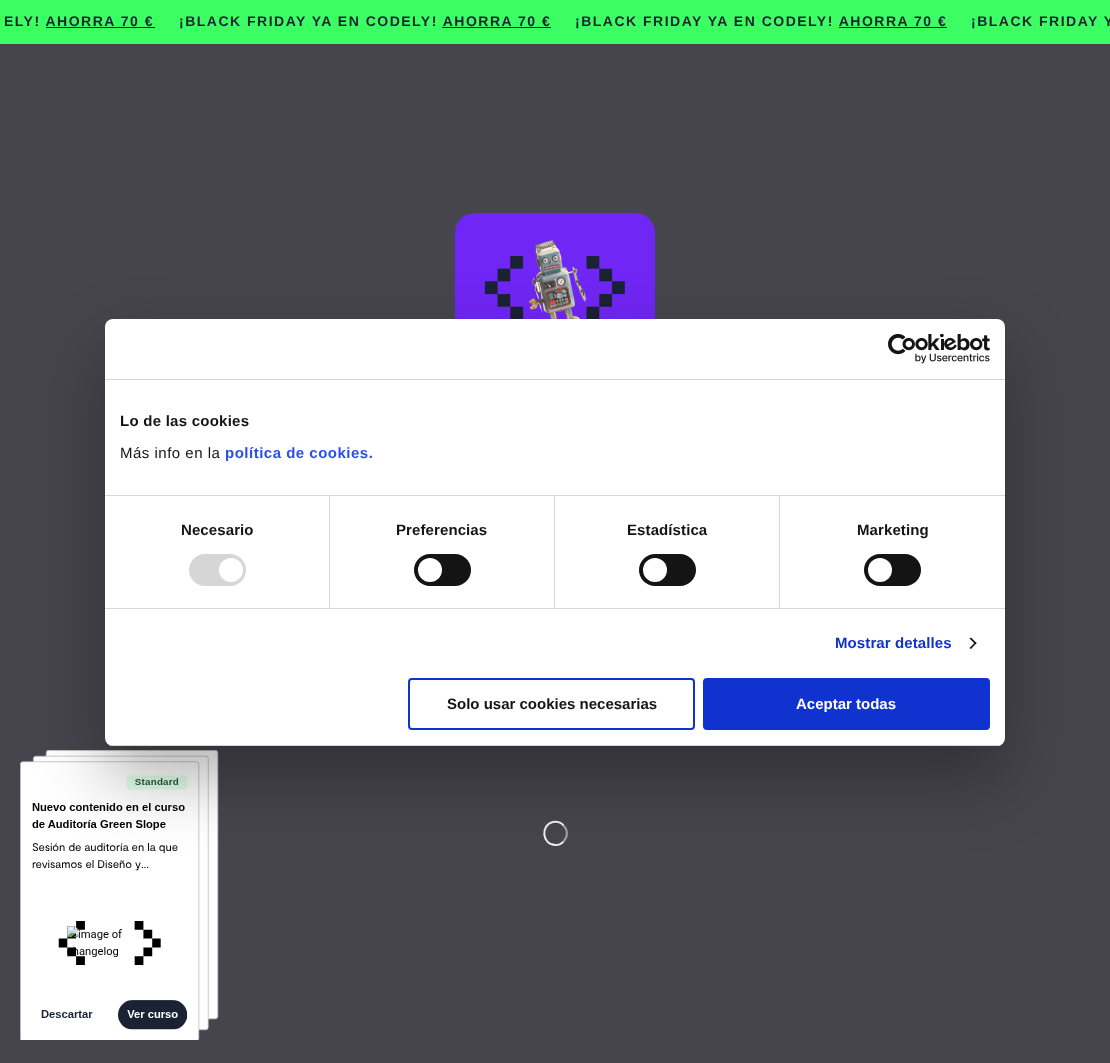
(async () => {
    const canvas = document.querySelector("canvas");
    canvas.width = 1110;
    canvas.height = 1063;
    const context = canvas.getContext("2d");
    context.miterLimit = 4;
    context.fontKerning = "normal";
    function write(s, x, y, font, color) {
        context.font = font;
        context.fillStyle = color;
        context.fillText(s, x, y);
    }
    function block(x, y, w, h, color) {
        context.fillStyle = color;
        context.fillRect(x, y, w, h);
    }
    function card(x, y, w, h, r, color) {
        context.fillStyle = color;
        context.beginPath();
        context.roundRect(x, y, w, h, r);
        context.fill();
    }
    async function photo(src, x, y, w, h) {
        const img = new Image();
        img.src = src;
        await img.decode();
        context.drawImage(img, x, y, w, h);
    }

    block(0, 0, 1110, 1063, "rgb(70, 69, 77)");
    block(0, 0, 1110, 44, "rgb(60, 255, 100)");
    context.letterSpacing = "1.5px";
    write("ELY! AHORRA 70 €", 4, 26, "bold 14px Liberation Sans", "rgb(26, 34, 51)");
    block(46, 27, 109, 1, "rgb(26, 34, 51)");
    write("¡BLACK FRIDAY YA EN CODELY! AHORRA 70 €", 179, 26, "bold 14px Liberation Sans", "rgb(26, 34, 51)");
    block(442, 27, 109, 1, "rgb(26, 34, 51)");
    write("¡BLACK FRIDAY YA EN CODELY! AHORRA 70 €", 575, 26, "bold 14px Liberation Sans", "rgb(26, 34, 51)");
    block(839, 27, 108, 1, "rgb(26, 34, 51)");
    write("¡BLACK FRIDAY Y", 971, 26, "bold 14px Liberation Sans", "rgb(26, 34, 51)");
    await photo("media/1.png", 455, 213, 200, 106);
    context.beginPath();
    context.moveTo(563.5, 825.5);
    context.bezierCurveTo(568, 830, 568, 837, 563.5, 841.5);
    context.strokeStyle = "rgb(163, 162, 166)";
    context.lineWidth = 2;
    context.stroke();
    context.beginPath();
    context.moveTo(563.5, 841.5);
    context.bezierCurveTo(561.5, 844, 558.5, 845, 555.5, 845);
    context.bezierCurveTo(542, 845, 540, 825, 553, 822);
    context.bezierCurveTo(557, 821.5, 561, 822.5, 563.5, 825.5);
    context.strokeStyle = "rgba(255, 255, 255, 0.9)";
    context.stroke();
    await photo("media/3.png", 20, 750, 199, 290);
    context.fillStyle = "rgba(0, 0, 0, 0.3)";
    context.filter = "blur(34px)";
    context.beginPath();
    context.roundRect(105, 351, 900, 427, 8);
    context.fill();
    context.filter = "none";
    card(105, 319, 900, 427, 8, "rgb(255, 255, 255)");
    block(105, 379, 900, 1, "rgb(214, 214, 214)");
    await photo("media/2.png", 888, 334, 102, 30);
    block(105, 495, 900, 1, "rgb(214, 214, 214)");
    context.letterSpacing = "0.25px";
    write("Lo de las cookies", 120, 426, "bold 15px Liberation Sans", "rgb(20, 20, 20)");
    context.letterSpacing = "0.5px";
    write("Más info en la", 120, 458, "15px Liberation Sans", "rgb(20, 20, 20)");
    write("política de cookies.", 225, 458, "bold 15px Liberation Sans", "rgb(42, 78, 239)");
    block(105, 608, 900, 1, "rgb(214, 214, 214)");
    block(329, 496, 1, 112, "rgb(214, 214, 214)");
    context.letterSpacing = "0.1px";
    write("Necesario", 181, 535, "bold 15px Liberation Sans", "rgb(20, 20, 20)");
    card(189, 554, 57, 32, 16, "rgb(214, 214, 214)");
    context.fillStyle = "rgb(255, 255, 255)";
    context.beginPath();
    context.arc(231, 570, 12, 0, Math.PI * 2);
    context.fill();
    block(554, 496, 1, 112, "rgb(214, 214, 214)");
    write("Preferencias", 396, 535, "bold 15px Liberation Sans", "rgb(20, 20, 20)");
    card(414, 554, 57, 32, 16, "rgb(20, 20, 20)");
    context.fillStyle = "rgb(255, 255, 255)";
    context.beginPath();
    context.arc(430, 570, 12, 0, Math.PI * 2);
    context.fill();
    block(779, 496, 1, 112, "rgb(214, 214, 214)");
    write("Estadística", 627, 535, "bold 15px Liberation Sans", "rgb(20, 20, 20)");
    card(639, 554, 57, 32, 16, "rgb(20, 20, 20)");
    context.fillStyle = "rgb(255, 255, 255)";
    context.beginPath();
    context.arc(655, 570, 12, 0, Math.PI * 2);
    context.fill();
    write("Marketing", 857, 535, "bold 15px Liberation Sans", "rgb(20, 20, 20)");
    card(864, 554, 57, 32, 16, "rgb(20, 20, 20)");
    context.fillStyle = "rgb(255, 255, 255)";
    context.beginPath();
    context.arc(880, 570, 12, 0, Math.PI * 2);
    context.fill();
    write("Mostrar detalles", 835, 648, "bold 15px Liberation Sans", "rgb(16, 50, 207)");
    context.fillStyle = "rgb(20, 20, 20)";
    context.beginPath();
    context.moveTo(971, 637.5);
    context.lineTo(976.5, 643);
    context.lineTo(975.5, 644.5);
    context.lineTo(969.5, 638.5);
    context.closePath();
    context.fill();
    context.beginPath();
    context.moveTo(975.5, 642);
    context.lineTo(976.5, 643);
    context.lineTo(971, 649);
    context.lineTo(969.5, 648);
    context.closePath();
    context.fill();
    context.save();
    context.beginPath();
    context.roundRect(105, 319, 900, 427, 8);
    context.clip();
    block(105, 745, 900, 1, "rgb(214, 214, 214)");
    context.restore();
    context.beginPath();
    context.roundRect(409, 679, 285, 50, 3);
    context.strokeStyle = "rgb(16, 50, 207)";
    context.stroke();
    context.letterSpacing = "0px";
    write("Solo usar cookies necesarias", 447, 709, "bold 15px Liberation Sans", "rgb(20, 20, 20)");
    context.fillStyle = "rgb(16, 50, 207)";
    context.beginPath();
    context.roundRect(704, 679, 285, 50, 3);
    context.fill();
    context.stroke();
    write("Aceptar todas", 796, 709, "bold 15px Liberation Sans", "rgb(255, 255, 255)");
})();
